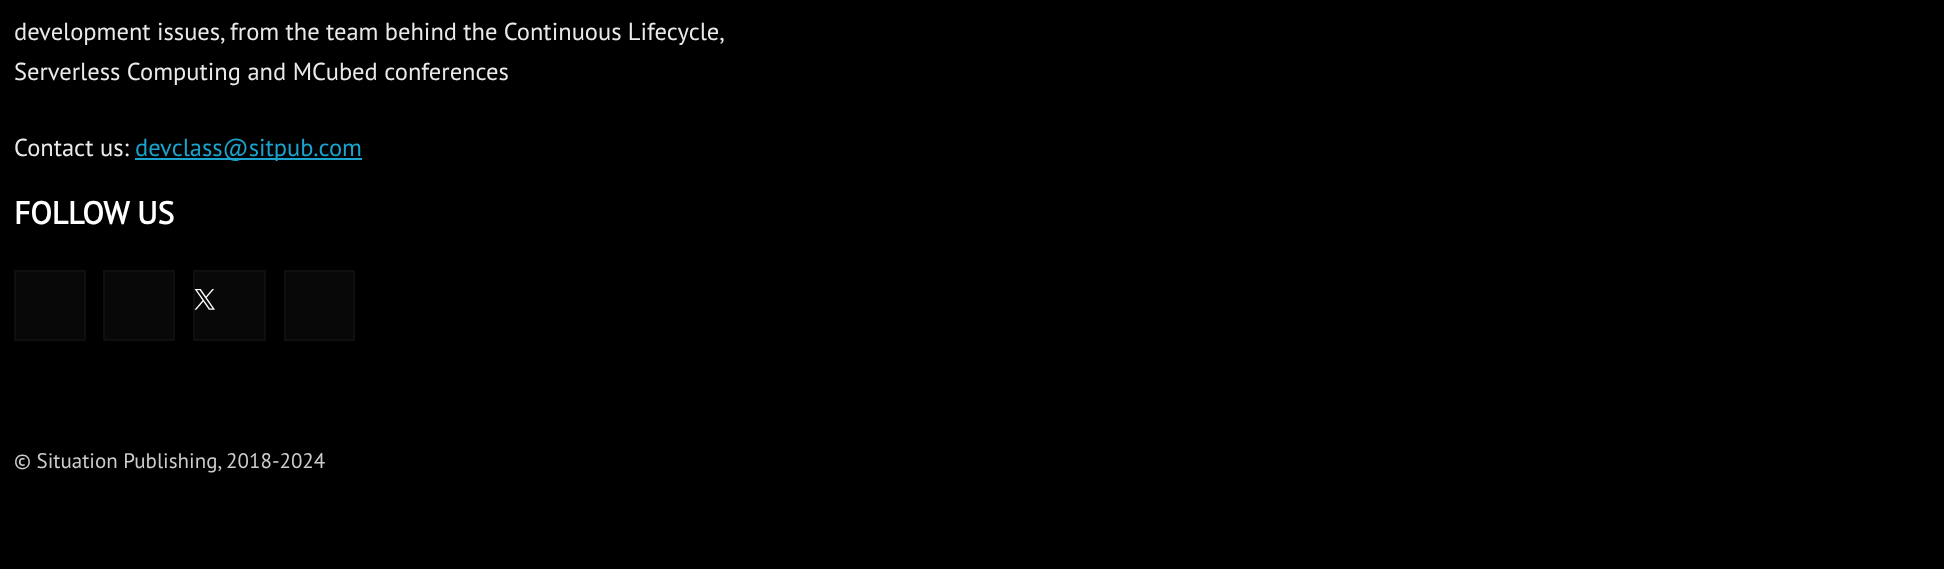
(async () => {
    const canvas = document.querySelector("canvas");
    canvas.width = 1944;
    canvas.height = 569;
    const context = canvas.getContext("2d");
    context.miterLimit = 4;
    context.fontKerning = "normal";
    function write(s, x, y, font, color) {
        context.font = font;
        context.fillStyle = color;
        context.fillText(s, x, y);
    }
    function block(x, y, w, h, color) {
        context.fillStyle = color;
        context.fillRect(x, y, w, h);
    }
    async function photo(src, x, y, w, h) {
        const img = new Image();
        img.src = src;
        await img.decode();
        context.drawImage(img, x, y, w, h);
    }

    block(0, 0, 1944, 569, "rgb(0, 0, 0)");
    context.wordSpacing = "-0.25px";
    write("development issues, from the team behind the Continuous Lifecycle,", 14, 40, "24.5px PT Sans", "rgb(234, 234, 234)");
    context.wordSpacing = "0px";
    write("Serverless Computing and MCubed conferences", 14, 80, "24.5px PT Sans", "rgb(234, 234, 234)");
    write("Contact us:", 14, 156, "24.5px PT Sans", "rgb(234, 234, 234)");
    block(135, 158, 227, 2, "rgb(26, 164, 206)");
    write("devclass@sitpub.com", 135, 156, "24.5px PT Sans", "rgb(26, 164, 206)");
    write("FOLLOW US", 14, 224, "bold 31.5px PT Sans", "rgb(255, 255, 255)");
    context.fillStyle = "rgb(8, 8, 8)";
    context.beginPath();
    context.rect(15, 271, 70, 69);
    context.fill();
    context.strokeStyle = "rgb(15, 15, 15)";
    context.lineWidth = 2;
    context.stroke();
    context.beginPath();
    context.rect(104, 271, 70, 69);
    context.fill();
    context.stroke();
    context.beginPath();
    context.rect(194, 271, 71, 69);
    context.fill();
    context.stroke();
    await photo("media/1.png", 194, 289, 21, 21);
    context.beginPath();
    context.rect(285, 271, 69, 69);
    context.fill();
    context.stroke();
    write("© Situation Publishing, 2018-2024", 14, 468, "21px PT Sans", "rgb(204, 204, 204)");
})();
